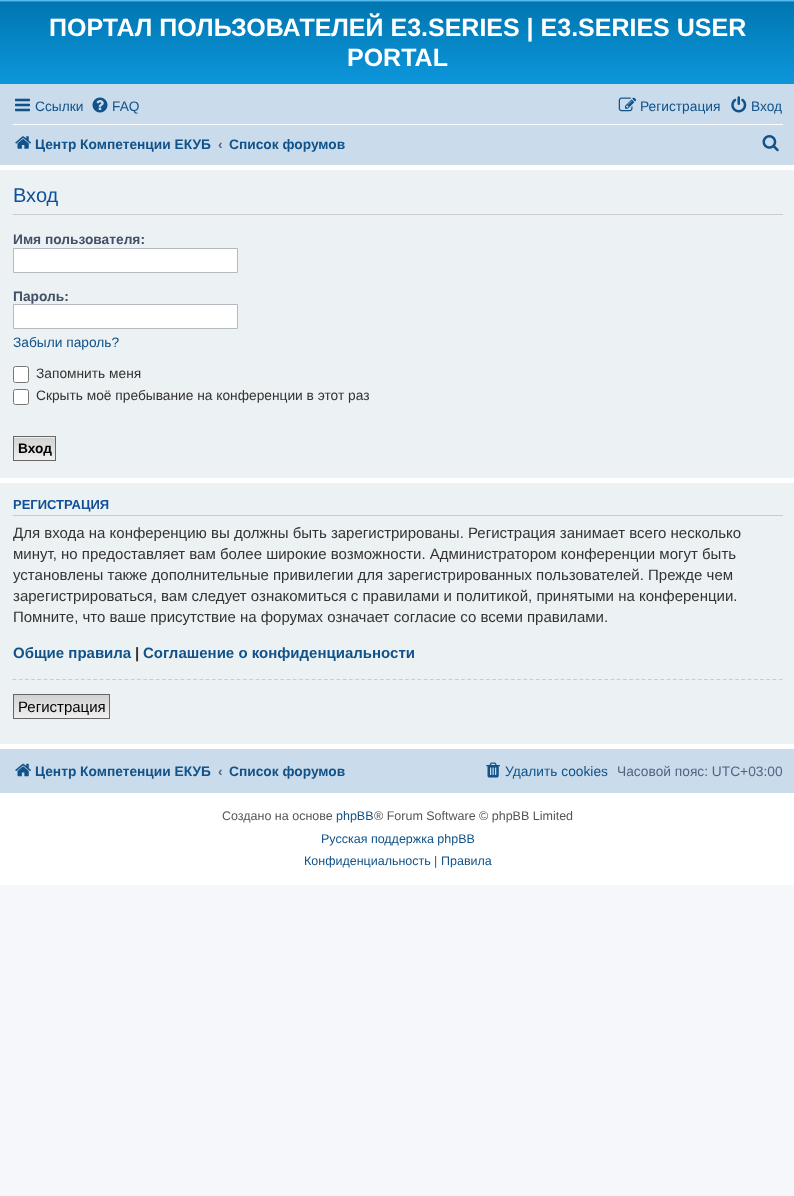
(async () => {
    const canvas = document.querySelector("canvas");
    canvas.width = 794;
    canvas.height = 1196;
    const context = canvas.getContext("2d");
    context.miterLimit = 4;
    context.fontKerning = "normal";
    function write(s, x, y, font, color) {
        context.font = font;
        context.fillStyle = color;
        context.fillText(s, x, y);
    }
    function block(x, y, w, h, color) {
        context.fillStyle = color;
        context.fillRect(x, y, w, h);
    }
    async function photo(src, x, y, w, h) {
        const img = new Image();
        img.src = src;
        await img.decode();
        context.drawImage(img, x, y, w, h);
    }
    let gradient;

    block(0, 0, 794, 1196, "rgb(245, 247, 250)");
    block(0, 165, 794, 720, "rgb(255, 255, 255)");
    gradient = context.createLinearGradient(398, 0, 398, 115);
    gradient.addColorStop(0, "rgb(106, 206, 255)");
    gradient.addColorStop(0.02, "rgb(0, 118, 177)");
    gradient.addColorStop(1, "rgb(18, 163, 235)");
    context.fillStyle = gradient;
    context.fillRect(0, 0, 794, 84);
    write("ПОРТАЛ ПОЛЬЗОВАТЕЛЕЙ E3.SERIES | E3.SERIES USER", 49, 36, "bold 25px Liberation Sans", "rgb(255, 255, 255)");
    write("PORTAL", 347, 66, "bold 25px Liberation Sans", "rgb(255, 255, 255)");
    block(0, 84, 794, 81, "rgb(202, 220, 235)");
    await photo("media/1.png", 15, 98, 15, 14);
    write("Ссылки", 35, 111, "13.75px Liberation Sans", "rgb(16, 82, 137)");
    await photo("media/2.png", 92, 97, 16, 16);
    write("FAQ", 112, 111, "13.75px Liberation Sans", "rgb(16, 82, 137)");
    await photo("media/3.png", 618, 97, 19, 15);
    write("Регистрация", 640, 111, "13.75px Liberation Sans", "rgb(16, 82, 137)");
    await photo("media/4.png", 731, 96, 16, 17);
    write("Вход", 751, 111, "13.75px Liberation Sans", "rgb(16, 82, 137)");
    block(13, 124, 770, 1, "rgb(255, 255, 255)");
    await photo("media/5.png", 15, 136, 16, 13);
    write("Центр Компетенции ЕКУБ", 35, 149, "bold 13.75px Liberation Sans", "rgb(16, 82, 137)");
    write("‹", 218, 149, "bold 13.75px Liberation Sans", "rgb(83, 100, 130)");
    write("Список форумов", 229, 149, "bold 13.75px Liberation Sans", "rgb(16, 82, 137)");
    await photo("media/6.png", 762, 135, 17, 17);
    block(0, 170, 794, 308, "rgb(236, 241, 243)");
    block(13, 214, 770, 1, "rgb(204, 204, 204)");
    write("Вход", 13, 202, "20px Liberation Sans", "rgb(17, 80, 152)");
    write("Имя пользователя:", 13, 244, "bold 13.75px Liberation Sans", "rgb(66, 80, 103)");
    context.fillStyle = "rgb(255, 255, 255)";
    context.beginPath();
    context.rect(13.5, 248.5, 224, 24);
    context.fill();
    context.strokeStyle = "rgb(180, 186, 192)";
    context.stroke();
    write("Пароль:", 13, 301, "bold 13.75px Liberation Sans", "rgb(66, 80, 103)");
    context.fillStyle = "rgb(255, 255, 255)";
    context.beginPath();
    context.rect(13.5, 304.5, 224, 24);
    context.fill();
    context.stroke();
    write("Забыли пароль?", 13, 347, "13.75px Liberation Sans", "rgb(16, 82, 137)");
    context.fillStyle = "rgb(255, 255, 255)";
    context.beginPath();
    context.roundRect(13.5, 366.5, 15, 16, 2);
    context.fill();
    context.strokeStyle = "rgb(118, 118, 118)";
    context.stroke();
    write("Запомнить меня", 36, 378, "13.75px Liberation Sans", "rgb(51, 51, 51)");
    context.fillStyle = "rgb(255, 255, 255)";
    context.beginPath();
    context.roundRect(13.5, 389.5, 15, 15, 2);
    context.fill();
    context.stroke();
    write("Скрыть моё пребывание на конференции в этот раз", 36, 400, "13.75px Liberation Sans", "rgb(51, 51, 51)");
    block(14, 437, 41, 1, "rgb(239, 239, 239)");
    gradient = context.createLinearGradient(34, 438, 34, 460);
    gradient.addColorStop(0, "rgb(210, 210, 210)");
    gradient.addColorStop(1, "rgb(239, 239, 239)");
    context.fillStyle = gradient;
    context.fillRect(14, 438, 41, 22);
    context.strokeStyle = "rgb(102, 102, 102)";
    context.strokeRect(13.5, 436.5, 42, 24);
    write("Вход", 18, 453, "bold 13.75px Liberation Sans", "rgb(0, 0, 0)");
    block(0, 483, 794, 261, "rgb(236, 241, 243)");
    block(13, 515, 770, 1, "rgb(204, 204, 204)");
    write("РЕГИСТРАЦИЯ", 13, 509, "bold 13px Liberation Sans", "rgb(17, 80, 152)");
    context.save();
    context.beginPath();
    context.rect(13, 524, 770, 105);
    context.clip();
    write("Для входа на конференцию вы должны быть зарегистрированы. Регистрация занимает всего несколько", 13, 538, "15px Liberation Sans", "rgb(51, 51, 51)");
    context.restore();
    write("минут, но предоставляет вам более широкие возможности. Администратором конференции могут быть", 13, 559, "15px Liberation Sans", "rgb(51, 51, 51)");
    write("установлены также дополнительные привилегии для зарегистрированных пользователей. Прежде чем", 13, 580, "15px Liberation Sans", "rgb(51, 51, 51)");
    write("зарегистрироваться, вам следует ознакомиться с правилами и политикой, принятыми на конференции.", 13, 601, "15px Liberation Sans", "rgb(51, 51, 51)");
    write("Помните, что ваше присутствие на форумах означает согласие со всеми правилами.", 13, 622, "15px Liberation Sans", "rgb(51, 51, 51)");
    write("Общие правила", 13, 658, "bold 15px Liberation Sans", "rgb(16, 82, 137)");
    write("|", 135, 658, "bold 15px Liberation Sans", "rgb(51, 51, 51)");
    write("Соглашение о конфиденциальности", 143, 658, "bold 15px Liberation Sans", "rgb(16, 82, 137)");
    context.beginPath();
    context.moveTo(12.5, 679.5);
    context.lineTo(782.5, 679.5);
    context.strokeStyle = "rgb(204, 204, 204)";
    context.lineWidth = 1.2;
    context.setLineDash([3.75, 2.48]);
    context.stroke();
    gradient = context.createLinearGradient(61, 695, 61, 718);
    gradient.addColorStop(0, "rgb(210, 210, 210)");
    gradient.addColorStop(1, "rgb(239, 239, 239)");
    context.fillStyle = gradient;
    context.fillRect(14, 695, 95, 23);
    context.strokeStyle = "rgb(102, 102, 102)";
    context.lineWidth = 1;
    context.setLineDash([]);
    context.strokeRect(13.5, 694.5, 96, 24);
    write("Регистрация", 18, 712, "15px Liberation Sans", "rgb(0, 0, 0)");
    block(0, 749, 794, 44, "rgb(202, 220, 235)");
    await photo("media/7.png", 15, 763, 16, 14);
    write("Центр Компетенции ЕКУБ", 35, 776, "bold 13.75px Liberation Sans", "rgb(16, 82, 137)");
    write("‹", 218, 776, "bold 13.75px Liberation Sans", "rgb(83, 100, 130)");
    write("Список форумов", 229, 776, "bold 13.75px Liberation Sans", "rgb(16, 82, 137)");
    await photo("media/8.png", 486, 762, 14, 16);
    write("Удалить cookies", 505, 776, "13.75px Liberation Sans", "rgb(16, 82, 137)");
    write("Часовой пояс: UTC+03:00", 617, 776, "13.75px Liberation Sans", "rgb(83, 100, 130)");
    write("Создано на основе", 222, 820, "12.5px Liberation Sans", "rgb(85, 85, 85)");
    write("phpBB", 336, 820, "12.5px Liberation Sans", "rgb(16, 82, 137)");
    write("® Forum Software © phpBB Limited", 374, 820, "12.5px Liberation Sans", "rgb(85, 85, 85)");
    write("Русская поддержка phpBB", 321, 843, "12.5px Liberation Sans", "rgb(16, 82, 137)");
    write("Конфиденциальность", 304, 865, "12.5px Liberation Sans", "rgb(16, 82, 137)");
    write("|", 434, 865, "12.5px Liberation Sans", "rgb(85, 85, 85)");
    write("Правила", 441, 865, "12.5px Liberation Sans", "rgb(16, 82, 137)");
})();
